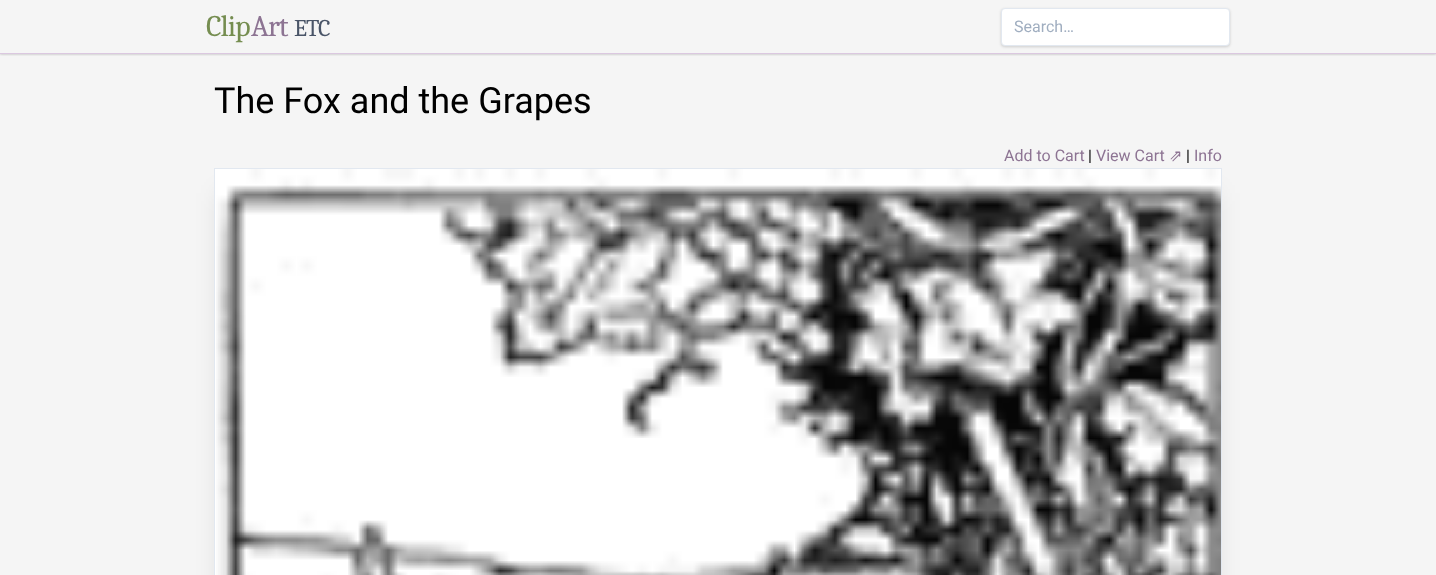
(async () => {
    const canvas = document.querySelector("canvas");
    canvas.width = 1436;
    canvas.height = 575;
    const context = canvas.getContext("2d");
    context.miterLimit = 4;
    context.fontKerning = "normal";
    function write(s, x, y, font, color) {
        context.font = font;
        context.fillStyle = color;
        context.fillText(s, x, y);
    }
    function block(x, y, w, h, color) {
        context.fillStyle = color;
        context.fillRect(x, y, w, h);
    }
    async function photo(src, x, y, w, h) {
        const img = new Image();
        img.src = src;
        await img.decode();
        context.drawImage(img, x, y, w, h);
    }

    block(0, 0, 1436, 575, "rgb(245, 245, 245)");
    context.save();
    context.beginPath();
    context.rect(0, 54, 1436, 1);
    context.clip();
    context.fillStyle = "rgba(0, 0, 0, 0.06)";
    context.filter = "blur(1px)";
    context.beginPath();
    context.rect(0, 1, 1436, 54);
    context.fill();
    context.filter = "none";
    context.restore();
    context.save();
    context.beginPath();
    context.rect(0, 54, 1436, 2);
    context.clip();
    context.fillStyle = "rgba(0, 0, 0, 0.1)";
    context.filter = "blur(1.5px)";
    context.beginPath();
    context.rect(0, 1, 1436, 54);
    context.fill();
    context.filter = "none";
    context.restore();
    block(0, 53, 1436, 1, "rgb(219, 200, 224)");
    context.letterSpacing = "-1px";
    write("Clip", 206, 36, "30px Caladea", "rgb(117, 141, 80)");
    write("Art", 251, 36, "30px Caladea", "rgb(141, 116, 147)");
    write("ETC", 294, 36, "24px Caladea", "rgb(74, 85, 104)");
    context.fillStyle = "rgba(0, 0, 0, 0.06)";
    context.filter = "blur(1px)";
    context.beginPath();
    context.roundRect(1001, 9, 229, 38, 4);
    context.fill();
    context.filter = "none";
    context.fillStyle = "rgba(0, 0, 0, 0.1)";
    context.filter = "blur(1.5px)";
    context.beginPath();
    context.roundRect(1001, 9, 229, 38, 4);
    context.fill();
    context.filter = "none";
    context.fillStyle = "rgb(255, 255, 255)";
    context.beginPath();
    context.roundRect(1001.5, 8.5, 228, 37, 3.5);
    context.fill();
    context.strokeStyle = "rgb(226, 232, 240)";
    context.stroke();
    context.letterSpacing = "0px";
    write("Search…", 1014, 32, "16px Roboto", "rgb(160, 174, 192)");
    write("The Fox and the Grapes", 214, 113, "36px Roboto", "rgb(0, 0, 0)");
    write("Add to Cart", 1004, 161, "16px Roboto", "rgb(141, 116, 147)");
    write("|", 1088, 161, "16px Roboto", "rgb(0, 0, 0)");
    write("View Cart", 1096, 161, "16px Roboto", "rgb(141, 116, 147)");
    write("⇗", 1169, 161, "16px DejaVu Sans", "rgb(141, 116, 147)");
    write("|", 1186, 161, "16px Roboto", "rgb(0, 0, 0)");
    write("Info", 1194, 161, "16px Roboto", "rgb(141, 116, 147)");
    context.fillStyle = "rgba(0, 0, 0, 0.1)";
    context.filter = "blur(12.5px)";
    context.beginPath();
    context.rect(219, 193, 998, 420);
    context.fill();
    context.filter = "none";
    context.strokeRect(214.5, 168.5, 1007, 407);
    await photo("media/1.png", 215, 169, 1006, 406);
})();
